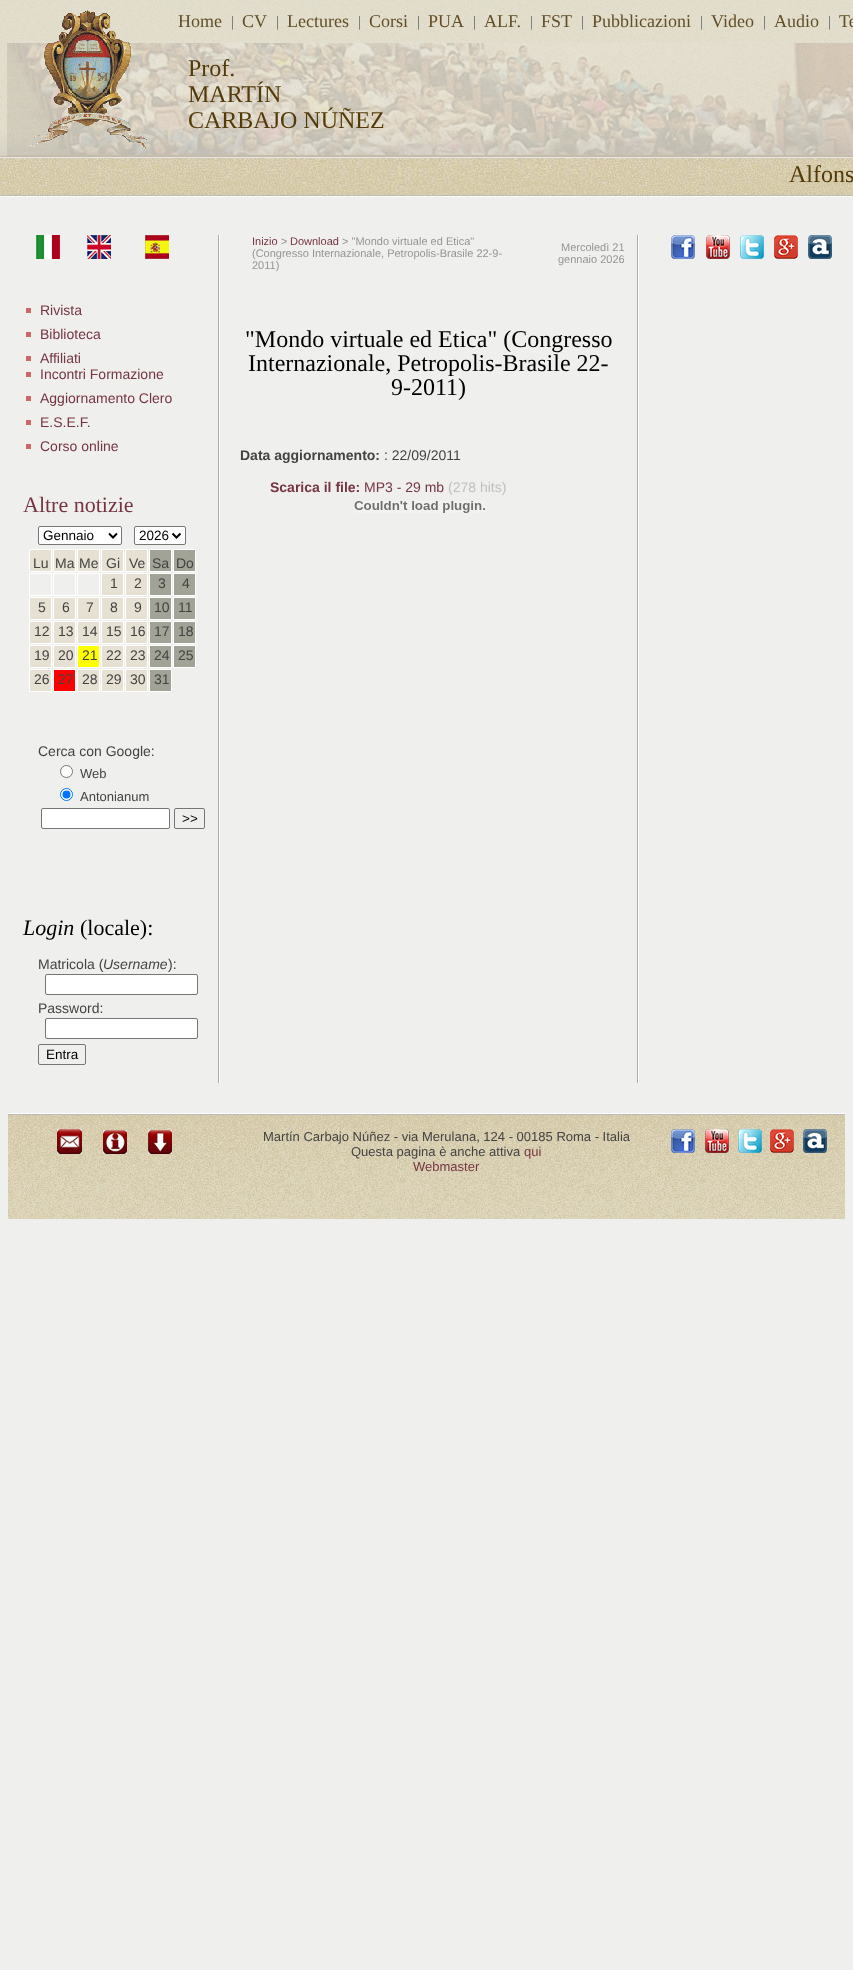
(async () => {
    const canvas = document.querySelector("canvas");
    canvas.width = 853;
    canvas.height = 1970;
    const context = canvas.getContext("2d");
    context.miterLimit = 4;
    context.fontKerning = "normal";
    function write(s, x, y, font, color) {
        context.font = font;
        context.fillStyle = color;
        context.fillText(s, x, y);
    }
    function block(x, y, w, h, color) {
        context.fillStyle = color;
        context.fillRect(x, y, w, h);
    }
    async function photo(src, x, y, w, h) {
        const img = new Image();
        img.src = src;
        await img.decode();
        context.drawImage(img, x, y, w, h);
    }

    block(0, 0, 853, 1970, "rgb(239, 239, 237)");
    await photo("media/1.png", 0, 0, 853, 197);
    await photo("media/2.png", 0, 0, 853, 157);
    block(0, 157, 853, 1, "rgb(228, 228, 228)");
    write("Home", 178, 27, "18px Liberation Serif", "rgb(98, 78, 38)");
    await photo("media/3.png", 232, 15, 1, 15);
    write("CV", 242, 27, "18px Liberation Serif", "rgb(98, 78, 38)");
    await photo("media/3.png", 277, 15, 1, 15);
    write("Lectures", 287, 27, "18px Liberation Serif", "rgb(98, 78, 38)");
    await photo("media/3.png", 359, 15, 1, 15);
    write("Corsi", 369, 27, "18px Liberation Serif", "rgb(98, 78, 38)");
    await photo("media/3.png", 418, 15, 1, 15);
    write("PUA", 428, 27, "18px Liberation Serif", "rgb(98, 78, 38)");
    await photo("media/3.png", 474, 15, 1, 15);
    write("ALF.", 484, 27, "18px Liberation Serif", "rgb(98, 78, 38)");
    await photo("media/3.png", 531, 15, 1, 15);
    write("FST", 541, 27, "18px Liberation Serif", "rgb(98, 78, 38)");
    await photo("media/3.png", 582, 15, 1, 15);
    write("Pubblicazioni", 592, 27, "18px Liberation Serif", "rgb(98, 78, 38)");
    await photo("media/3.png", 701, 15, 1, 15);
    write("Video", 711, 27, "18px Liberation Serif", "rgb(98, 78, 38)");
    await photo("media/3.png", 764, 15, 1, 15);
    write("Audio", 774, 27, "18px Liberation Serif", "rgb(98, 78, 38)");
    await photo("media/3.png", 829, 15, 1, 15);
    write("Te", 839, 27, "18px Liberation Serif", "rgb(98, 78, 38)");
    await photo("media/5.png", 7, 43, 846, 112);
    await photo("media/4.png", 7, 41, 846, 115);
    await photo("media/6.png", 28, 10, 119, 139);
    write("Prof.", 188, 76, "24px Liberation Serif", "rgb(83, 58, 9)");
    write("MARTÍN", 188, 102, "24px Liberation Serif", "rgb(83, 58, 9)");
    write("CARBAJO NÚÑEZ", 188, 128, "24px Liberation Serif", "rgb(83, 58, 9)");
    write("Alfons", 789, 182, "24px Liberation Serif", "rgb(83, 58, 9)");
    await photo("media/7.png", 218, 235, 2, 848);
    await photo("media/8.png", 36, 235, 24, 24);
    await photo("media/9.png", 87, 235, 24, 24);
    await photo("media/10.png", 145, 235, 24, 24);
    block(26, 308, 5, 5, "rgb(204, 102, 102)");
    write("Rivista", 40, 315, "14px Liberation Sans", "rgb(118, 52, 66)");
    block(26, 332, 5, 5, "rgb(204, 102, 102)");
    write("Biblioteca", 40, 339, "14px Liberation Sans", "rgb(118, 52, 66)");
    block(26, 356, 5, 5, "rgb(204, 102, 102)");
    write("Affiliati", 40, 363, "14px Liberation Sans", "rgb(118, 52, 66)");
    block(26, 372, 5, 5, "rgb(204, 102, 102)");
    write("Incontri Formazione", 40, 379, "14px Liberation Sans", "rgb(118, 52, 66)");
    block(26, 396, 5, 5, "rgb(204, 102, 102)");
    write("Aggiornamento Clero", 40, 403, "14px Liberation Sans", "rgb(118, 52, 66)");
    block(26, 420, 5, 5, "rgb(204, 102, 102)");
    write("E.S.E.F.", 40, 427, "14px Liberation Sans", "rgb(118, 52, 66)");
    block(26, 444, 5, 5, "rgb(204, 102, 102)");
    write("Corso online", 40, 451, "14px Liberation Sans", "rgb(118, 52, 66)");
    write("Altre notizie", 23, 512, "22px Liberation Serif", "rgb(118, 52, 66)");
    context.fillStyle = "rgb(255, 255, 255)";
    context.beginPath();
    context.roundRect(38.5, 526.5, 83, 18, 1.5);
    context.fill();
    context.strokeStyle = "rgb(118, 118, 118)";
    context.stroke();
    context.beginPath();
    context.moveTo(109, 533.5);
    context.lineTo(113, 537.5);
    context.lineTo(117, 533.5);
    context.strokeStyle = "rgb(0, 0, 0)";
    context.lineWidth = 2;
    context.stroke();
    write("Gennaio", 43, 540, "13.5px Liberation Sans", "rgb(0, 0, 0)");
    context.fillStyle = "rgb(255, 255, 255)";
    context.beginPath();
    context.roundRect(134.5, 526.5, 51, 18, 1.5);
    context.fill();
    context.strokeStyle = "rgb(118, 118, 118)";
    context.lineWidth = 1;
    context.stroke();
    context.beginPath();
    context.moveTo(172.5, 533.5);
    context.lineTo(176.5, 537.5);
    context.lineTo(180.5, 533.5);
    context.strokeStyle = "rgb(0, 0, 0)";
    context.lineWidth = 2;
    context.stroke();
    write("2026", 139, 540, "13.5px Liberation Sans", "rgb(0, 0, 0)");
    context.fillStyle = "rgb(230, 225, 211)";
    context.beginPath();
    context.rect(29.5, 549.5, 22, 22);
    context.fill();
    context.strokeStyle = "rgb(255, 255, 255)";
    context.lineWidth = 1;
    context.stroke();
    write("Lu", 33, 568, "14px Liberation Sans", "rgb(67, 67, 67)");
    context.fillStyle = "rgb(230, 225, 211)";
    context.beginPath();
    context.rect(53.5, 549.5, 22, 22);
    context.fill();
    context.stroke();
    write("Ma", 55, 568, "14px Liberation Sans", "rgb(67, 67, 67)");
    context.fillStyle = "rgb(230, 225, 211)";
    context.beginPath();
    context.rect(77.5, 549.5, 22, 22);
    context.fill();
    context.stroke();
    write("Me", 79, 568, "14px Liberation Sans", "rgb(67, 67, 67)");
    context.fillStyle = "rgb(230, 225, 211)";
    context.beginPath();
    context.rect(101.5, 549.5, 22, 22);
    context.fill();
    context.stroke();
    write("Gi", 106, 568, "14px Liberation Sans", "rgb(67, 67, 67)");
    context.fillStyle = "rgb(230, 225, 211)";
    context.beginPath();
    context.rect(125.5, 549.5, 22, 22);
    context.fill();
    context.stroke();
    write("Ve", 129, 568, "14px Liberation Sans", "rgb(67, 67, 67)");
    context.fillStyle = "rgb(160, 163, 149)";
    context.beginPath();
    context.rect(149.5, 549.5, 22, 22);
    context.fill();
    context.stroke();
    write("Sa", 152, 568, "14px Liberation Sans", "rgb(67, 67, 67)");
    context.fillStyle = "rgb(160, 163, 149)";
    context.beginPath();
    context.rect(173.5, 549.5, 22, 22);
    context.fill();
    context.stroke();
    write("Do", 176, 568, "14px Liberation Sans", "rgb(67, 67, 67)");
    context.strokeRect(29.5, 573.5, 22, 22);
    context.strokeRect(53.5, 573.5, 22, 22);
    context.strokeRect(77.5, 573.5, 22, 22);
    context.fillStyle = "rgb(230, 225, 211)";
    context.beginPath();
    context.rect(101.5, 573.5, 22, 22);
    context.fill();
    context.stroke();
    write("1", 110, 588, "14px Liberation Sans", "rgb(67, 67, 67)");
    context.fillStyle = "rgb(230, 225, 211)";
    context.beginPath();
    context.rect(125.5, 573.5, 22, 22);
    context.fill();
    context.stroke();
    write("2", 134, 588, "14px Liberation Sans", "rgb(67, 67, 67)");
    context.fillStyle = "rgb(160, 163, 149)";
    context.beginPath();
    context.rect(149.5, 573.5, 22, 22);
    context.fill();
    context.stroke();
    write("3", 158, 588, "14px Liberation Sans", "rgb(67, 67, 67)");
    context.fillStyle = "rgb(160, 163, 149)";
    context.beginPath();
    context.rect(173.5, 573.5, 22, 22);
    context.fill();
    context.stroke();
    write("4", 182, 588, "14px Liberation Sans", "rgb(67, 67, 67)");
    context.fillStyle = "rgb(230, 225, 211)";
    context.beginPath();
    context.rect(29.5, 597.5, 22, 22);
    context.fill();
    context.stroke();
    write("5", 38, 612, "14px Liberation Sans", "rgb(67, 67, 67)");
    context.fillStyle = "rgb(230, 225, 211)";
    context.beginPath();
    context.rect(53.5, 597.5, 22, 22);
    context.fill();
    context.stroke();
    write("6", 62, 612, "14px Liberation Sans", "rgb(67, 67, 67)");
    context.fillStyle = "rgb(230, 225, 211)";
    context.beginPath();
    context.rect(77.5, 597.5, 22, 22);
    context.fill();
    context.stroke();
    write("7", 86, 612, "14px Liberation Sans", "rgb(67, 67, 67)");
    context.fillStyle = "rgb(230, 225, 211)";
    context.beginPath();
    context.rect(101.5, 597.5, 22, 22);
    context.fill();
    context.stroke();
    write("8", 110, 612, "14px Liberation Sans", "rgb(67, 67, 67)");
    context.fillStyle = "rgb(230, 225, 211)";
    context.beginPath();
    context.rect(125.5, 597.5, 22, 22);
    context.fill();
    context.stroke();
    write("9", 134, 612, "14px Liberation Sans", "rgb(67, 67, 67)");
    context.fillStyle = "rgb(160, 163, 149)";
    context.beginPath();
    context.rect(149.5, 597.5, 22, 22);
    context.fill();
    context.stroke();
    write("10", 154, 612, "14px Liberation Sans", "rgb(67, 67, 67)");
    context.fillStyle = "rgb(160, 163, 149)";
    context.beginPath();
    context.rect(173.5, 597.5, 22, 22);
    context.fill();
    context.stroke();
    write("11", 178, 612, "14px Liberation Sans", "rgb(67, 67, 67)");
    context.fillStyle = "rgb(230, 225, 211)";
    context.beginPath();
    context.rect(29.5, 621.5, 22, 22);
    context.fill();
    context.stroke();
    write("12", 34, 636, "14px Liberation Sans", "rgb(67, 67, 67)");
    context.fillStyle = "rgb(230, 225, 211)";
    context.beginPath();
    context.rect(53.5, 621.5, 22, 22);
    context.fill();
    context.stroke();
    write("13", 58, 636, "14px Liberation Sans", "rgb(67, 67, 67)");
    context.fillStyle = "rgb(230, 225, 211)";
    context.beginPath();
    context.rect(77.5, 621.5, 22, 22);
    context.fill();
    context.stroke();
    write("14", 82, 636, "14px Liberation Sans", "rgb(67, 67, 67)");
    context.fillStyle = "rgb(230, 225, 211)";
    context.beginPath();
    context.rect(101.5, 621.5, 22, 22);
    context.fill();
    context.stroke();
    write("15", 106, 636, "14px Liberation Sans", "rgb(67, 67, 67)");
    context.fillStyle = "rgb(230, 225, 211)";
    context.beginPath();
    context.rect(125.5, 621.5, 22, 22);
    context.fill();
    context.stroke();
    write("16", 130, 636, "14px Liberation Sans", "rgb(67, 67, 67)");
    context.fillStyle = "rgb(160, 163, 149)";
    context.beginPath();
    context.rect(149.5, 621.5, 22, 22);
    context.fill();
    context.stroke();
    write("17", 154, 636, "14px Liberation Sans", "rgb(67, 67, 67)");
    context.fillStyle = "rgb(160, 163, 149)";
    context.beginPath();
    context.rect(173.5, 621.5, 22, 22);
    context.fill();
    context.stroke();
    write("18", 178, 636, "14px Liberation Sans", "rgb(67, 67, 67)");
    context.fillStyle = "rgb(230, 225, 211)";
    context.beginPath();
    context.rect(29.5, 645.5, 22, 22);
    context.fill();
    context.stroke();
    write("19", 34, 660, "14px Liberation Sans", "rgb(67, 67, 67)");
    context.fillStyle = "rgb(230, 225, 211)";
    context.beginPath();
    context.rect(53.5, 645.5, 22, 22);
    context.fill();
    context.stroke();
    write("20", 58, 660, "14px Liberation Sans", "rgb(67, 67, 67)");
    context.fillStyle = "rgb(255, 255, 0)";
    context.beginPath();
    context.rect(77.5, 645.5, 22, 22);
    context.fill();
    context.stroke();
    write("21", 82, 660, "14px Liberation Sans", "rgb(67, 67, 67)");
    context.fillStyle = "rgb(230, 225, 211)";
    context.beginPath();
    context.rect(101.5, 645.5, 22, 22);
    context.fill();
    context.stroke();
    write("22", 106, 660, "14px Liberation Sans", "rgb(67, 67, 67)");
    context.fillStyle = "rgb(230, 225, 211)";
    context.beginPath();
    context.rect(125.5, 645.5, 22, 22);
    context.fill();
    context.stroke();
    write("23", 130, 660, "14px Liberation Sans", "rgb(67, 67, 67)");
    context.fillStyle = "rgb(160, 163, 149)";
    context.beginPath();
    context.rect(149.5, 645.5, 22, 22);
    context.fill();
    context.stroke();
    write("24", 154, 660, "14px Liberation Sans", "rgb(67, 67, 67)");
    context.fillStyle = "rgb(160, 163, 149)";
    context.beginPath();
    context.rect(173.5, 645.5, 22, 22);
    context.fill();
    context.stroke();
    write("25", 178, 660, "14px Liberation Sans", "rgb(67, 67, 67)");
    context.fillStyle = "rgb(230, 225, 211)";
    context.beginPath();
    context.rect(29.5, 669.5, 22, 22);
    context.fill();
    context.stroke();
    write("26", 34, 684, "14px Liberation Sans", "rgb(67, 67, 67)");
    context.fillStyle = "rgb(255, 0, 0)";
    context.beginPath();
    context.rect(53.5, 669.5, 22, 22);
    context.fill();
    context.stroke();
    write("27", 58, 684, "14px Liberation Sans", "rgb(67, 67, 67)");
    context.fillStyle = "rgb(230, 225, 211)";
    context.beginPath();
    context.rect(77.5, 669.5, 22, 22);
    context.fill();
    context.stroke();
    write("28", 82, 684, "14px Liberation Sans", "rgb(67, 67, 67)");
    context.fillStyle = "rgb(230, 225, 211)";
    context.beginPath();
    context.rect(101.5, 669.5, 22, 22);
    context.fill();
    context.stroke();
    write("29", 106, 684, "14px Liberation Sans", "rgb(67, 67, 67)");
    context.fillStyle = "rgb(230, 225, 211)";
    context.beginPath();
    context.rect(125.5, 669.5, 22, 22);
    context.fill();
    context.stroke();
    write("30", 130, 684, "14px Liberation Sans", "rgb(67, 67, 67)");
    context.fillStyle = "rgb(160, 163, 149)";
    context.beginPath();
    context.rect(149.5, 669.5, 22, 22);
    context.fill();
    context.stroke();
    write("31", 154, 684, "14px Liberation Sans", "rgb(67, 67, 67)");
    write("Cerca con Google:", 38, 756, "14px Liberation Sans", "rgb(67, 67, 67)");
    context.fillStyle = "rgb(255, 255, 255)";
    context.beginPath();
    context.arc(66.5, 771.5, 6, 0, Math.PI * 2);
    context.fill();
    context.strokeStyle = "rgb(118, 118, 118)";
    context.stroke();
    write("Web", 80, 778, "13px Liberation Sans", "rgb(67, 67, 67)");
    context.fillStyle = "rgb(255, 255, 255)";
    context.beginPath();
    context.arc(66.5, 794.5, 6, 0, Math.PI * 2);
    context.fill();
    context.strokeStyle = "rgb(0, 117, 255)";
    context.stroke();
    context.fillStyle = "rgb(0, 117, 255)";
    context.beginPath();
    context.arc(66.5, 794.5, 4, 0, Math.PI * 2);
    context.fill();
    write("Antonianum", 80, 801, "13px Liberation Sans", "rgb(67, 67, 67)");
    context.fillStyle = "rgb(255, 255, 255)";
    context.beginPath();
    context.roundRect(41.5, 808.5, 128, 20, 1.5);
    context.fill();
    context.strokeStyle = "rgb(118, 118, 118)";
    context.stroke();
    context.beginPath();
    context.roundRect(174.5, 808.5, 30, 20, 1.5);
    context.stroke();
    write(">>", 182, 823, "13.5px Liberation Sans", "rgb(0, 0, 0)");
    write("Login", 23, 935, "italic 22px Liberation Serif", "rgb(0, 0, 0)");
    write("(locale):", 80, 935, "22px Liberation Serif", "rgb(0, 0, 0)");
    write("Matricola (", 38, 969, "14px Liberation Sans", "rgb(67, 67, 67)");
    write("Username", 103, 969, "italic 14px Liberation Sans", "rgb(67, 67, 67)");
    write("):", 168, 969, "14px Liberation Sans", "rgb(67, 67, 67)");
    context.fillStyle = "rgb(255, 255, 255)";
    context.beginPath();
    context.roundRect(45.5, 974.5, 152, 20, 1.5);
    context.fill();
    context.stroke();
    write("Password:", 38, 1013, "14px Liberation Sans", "rgb(67, 67, 67)");
    context.fillStyle = "rgb(255, 255, 255)";
    context.beginPath();
    context.roundRect(45.5, 1018.5, 152, 20, 1.5);
    context.fill();
    context.stroke();
    context.beginPath();
    context.roundRect(38.5, 1044.5, 47, 20, 1.5);
    context.stroke();
    write("Entra", 46, 1059, "13.5px Liberation Sans", "rgb(0, 0, 0)");
    write("Inizio", 252, 245, "11px Liberation Sans", "rgb(118, 52, 66)");
    write(">", 281, 245, "11px Liberation Sans", "rgb(149, 149, 149)");
    write("Download", 290, 245, "11px Liberation Sans", "rgb(118, 52, 66)");
    write("> \"Mondo virtuale ed Etica\"", 342, 245, "11px Liberation Sans", "rgb(149, 149, 149)");
    write("(Congresso Internazionale, Petropolis-Brasile 22-9-", 252, 257, "11px Liberation Sans", "rgb(149, 149, 149)");
    write("2011)", 252, 269, "11px Liberation Sans", "rgb(149, 149, 149)");
    write("Mercoledì 21", 561, 251, "11px Liberation Sans", "rgb(149, 149, 149)");
    write("gennaio 2026", 558, 263, "11px Liberation Sans", "rgb(149, 149, 149)");
    write("\"Mondo virtuale ed Etica\" (Congresso", 245, 347, "24px Liberation Serif", "rgb(0, 0, 0)");
    write("Internazionale, Petropolis-Brasile 22-", 248, 371, "24px Liberation Serif", "rgb(0, 0, 0)");
    write("9-2011)", 391, 395, "24px Liberation Serif", "rgb(0, 0, 0)");
    write("Data aggiornamento:", 240, 460, "bold 14px Liberation Sans", "rgb(67, 67, 67)");
    write(": 22/09/2011", 384, 460, "14px Liberation Sans", "rgb(67, 67, 67)");
    write("Scarica il file:", 270, 492, "bold 14px Liberation Sans", "rgb(118, 52, 66)");
    write("MP3 - 29 mb", 364, 492, "14px Liberation Sans", "rgb(118, 52, 66)");
    write("(278 hits)", 448, 492, "14px Liberation Sans", "rgb(192, 192, 192)");
    await photo("media/11.png", 354, 501, 131, 12);
    await photo("media/7.png", 637, 235, 2, 848);
    await photo("media/12.png", 671, 235, 24, 24);
    await photo("media/13.png", 706, 235, 24, 24);
    await photo("media/14.png", 740, 235, 24, 24);
    await photo("media/15.png", 774, 235, 24, 24);
    await photo("media/16.png", 808, 235, 24, 24);
    await photo("media/17.png", 8, 1113, 837, 106);
    await photo("media/18.png", 57, 1129, 25, 25);
    await photo("media/19.png", 103, 1130, 24, 24);
    await photo("media/20.png", 148, 1130, 24, 24);
    write("Martín Carbajo Núñez - via Merulana, 124 - 00185 Roma - Italia", 263, 1141, "13px Liberation Sans", "rgb(67, 67, 67)");
    write("Questa pagina è anche attiva", 351, 1156, "13px Liberation Sans", "rgb(67, 67, 67)");
    write("qui", 524, 1156, "13px Liberation Sans", "rgb(118, 52, 66)");
    write("Webmaster", 413, 1171, "13px Liberation Sans", "rgb(118, 52, 66)");
    await photo("media/21.png", 671, 1129, 24, 24);
    await photo("media/22.png", 705, 1129, 24, 24);
    await photo("media/23.png", 738, 1129, 24, 24);
    await photo("media/24.png", 770, 1129, 24, 24);
    await photo("media/25.png", 803, 1129, 24, 24);
})();
